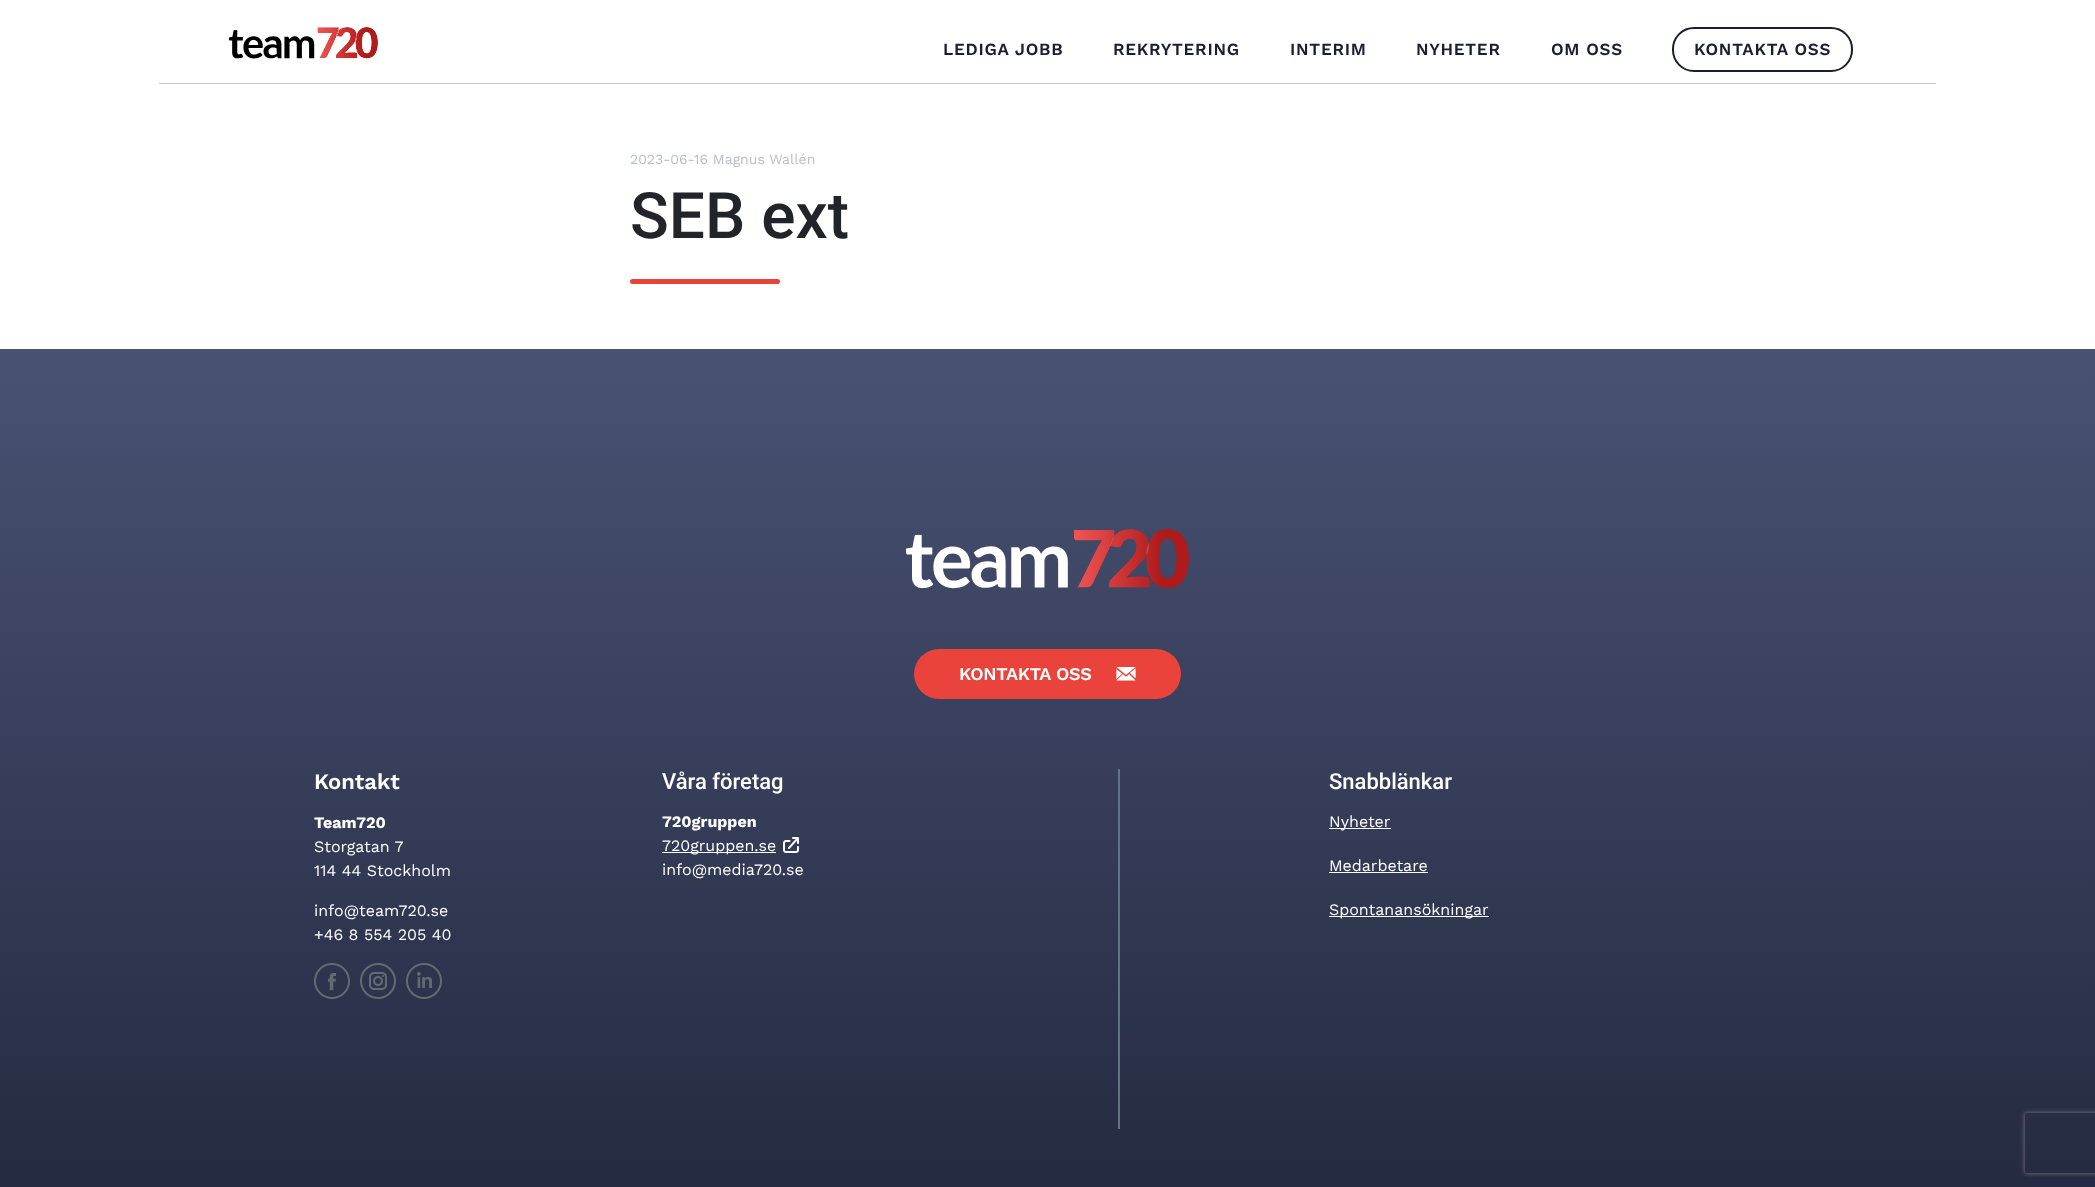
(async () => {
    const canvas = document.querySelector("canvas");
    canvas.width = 2095;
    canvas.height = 1187;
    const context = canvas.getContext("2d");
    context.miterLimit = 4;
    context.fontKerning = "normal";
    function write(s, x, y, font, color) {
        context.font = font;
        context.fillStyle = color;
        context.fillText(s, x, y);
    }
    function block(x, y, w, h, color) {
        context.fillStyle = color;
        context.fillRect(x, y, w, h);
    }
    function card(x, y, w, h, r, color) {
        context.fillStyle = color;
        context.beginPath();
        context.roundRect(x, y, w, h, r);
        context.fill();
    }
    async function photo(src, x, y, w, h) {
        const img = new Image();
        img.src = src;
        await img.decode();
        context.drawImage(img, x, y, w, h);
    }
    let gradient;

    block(0, 0, 2095, 1187, "rgb(255, 255, 255)");
    block(159, 83, 1777, 1, "rgb(196, 205, 213)");
    await photo("media/1.png", 229, 27, 149, 32);
    context.letterSpacing = "0.75px";
    write("LEDIGA JOBB", 943, 55, "600 17px Work Sans", "rgb(25, 30, 50)");
    write("REKRYTERING", 1113, 55, "600 17px Work Sans", "rgb(25, 30, 50)");
    write("INTERIM", 1290, 55, "600 17px Work Sans", "rgb(25, 30, 50)");
    write("NYHETER", 1416, 55, "600 17px Work Sans", "rgb(25, 30, 50)");
    write("OM OSS", 1551, 55, "600 17px Work Sans", "rgb(25, 30, 50)");
    context.beginPath();
    context.roundRect(1673, 28, 179, 43, 21);
    context.strokeStyle = "rgb(25, 30, 50)";
    context.lineWidth = 2;
    context.stroke();
    write("KONTAKTA OSS", 1694, 55, "600 17px Work Sans", "rgb(25, 30, 50)");
    context.letterSpacing = "0px";
    write("2023-06-16 Magnus Wallén", 630, 164, "14px Work Sans", "rgb(183, 190, 199)");
    write("SEB ext", 630, 238, "500 64px Roboto", "rgb(33, 36, 41)");
    card(630, 279, 150, 5, 2.5, "rgb(234, 67, 60)");
    gradient = context.createLinearGradient(1048, 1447, 1048, 349);
    gradient.addColorStop(0, "rgb(25, 30, 50)");
    gradient.addColorStop(1, "rgb(73, 82, 115)");
    gradient.addColorStop(1, "rgb(229, 229, 229)");
    context.fillStyle = gradient;
    context.fillRect(0, 349, 2095, 838);
    await photo("media/2.png", 906, 529, 283, 60);
    card(914, 649, 267, 50, 25, "rgb(234, 67, 60)");
    context.letterSpacing = "-0.25px";
    write("KONTAKTA OSS", 959, 680, "600 18px Work Sans", "rgb(255, 255, 255)");
    await photo("media/3.png", 1116, 667, 20, 14);
    context.letterSpacing = "0px";
    write("Kontakt", 314, 789, "600 22px Work Sans", "rgb(255, 255, 255)");
    write("Team720", 314, 828, "bold 16px Work Sans", "rgb(255, 255, 255)");
    write("Storgatan 7", 314, 852, "16px Work Sans", "rgb(255, 255, 255)");
    write("114 44 Stockholm", 314, 876, "16px Work Sans", "rgb(255, 255, 255)");
    write("info@team720.se", 314, 916, "16px Work Sans", "rgb(255, 255, 255)");
    write("+46 8 554 205 40", 314, 940, "16px Work Sans", "rgb(255, 255, 255)");
    await photo("media/4.png", 314, 963, 36, 36);
    await photo("media/5.png", 360, 963, 36, 36);
    await photo("media/6.png", 406, 963, 36, 36);
    write("Våra företag", 662, 789, "500 22px Roboto", "rgb(255, 255, 255)");
    write("720gruppen", 662, 827, "bold 16px Work Sans", "rgb(255, 255, 255)");
    block(662, 852, 114, 1, "rgb(255, 255, 255)");
    write("720gruppen.se", 662, 851, "16px Work Sans", "rgb(255, 255, 255)");
    await photo("media/7.png", 783, 837, 16, 16);
    write("info@media720.se", 662, 875, "16px Work Sans", "rgb(255, 255, 255)");
    block(1118, 769, 2, 360, "rgb(99, 115, 129)");
    write("Snabblänkar", 1329, 789, "500 22px Roboto", "rgb(255, 255, 255)");
    block(1329, 828, 62, 1, "rgb(255, 255, 255)");
    write("Nyheter", 1329, 827, "16px Work Sans", "rgb(255, 255, 255)");
    write("Medarbetare", 1329, 871, "16px Work Sans", "rgb(255, 255, 255)");
    block(1329, 872, 99, 1, "rgb(255, 255, 255)");
    block(1329, 916, 160, 1, "rgb(255, 255, 255)");
    write("Spontanansökningar", 1329, 915, "16px Work Sans", "rgb(255, 255, 255)");
    context.save();
    context.beginPath();
    context.moveTo(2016, 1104);
    context.lineTo(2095, 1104);
    context.lineTo(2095, 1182);
    context.lineTo(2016, 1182);
    context.closePath();
    context.moveTo(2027, 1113);
    context.lineTo(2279, 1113);
    context.bezierCurveTo(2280, 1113, 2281, 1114, 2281, 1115);
    context.lineTo(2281, 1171);
    context.bezierCurveTo(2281, 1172, 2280, 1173, 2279, 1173);
    context.lineTo(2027, 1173);
    context.bezierCurveTo(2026, 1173, 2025, 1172, 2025, 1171);
    context.lineTo(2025, 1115);
    context.bezierCurveTo(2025, 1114, 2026, 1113, 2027, 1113);
    context.closePath();
    context.clip("evenodd");
    context.fillStyle = "rgb(128, 128, 128)";
    context.filter = "blur(2.5px)";
    context.beginPath();
    context.roundRect(2025, 1113, 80, 60, 2);
    context.fill();
    context.filter = "none";
    context.restore();
})();
